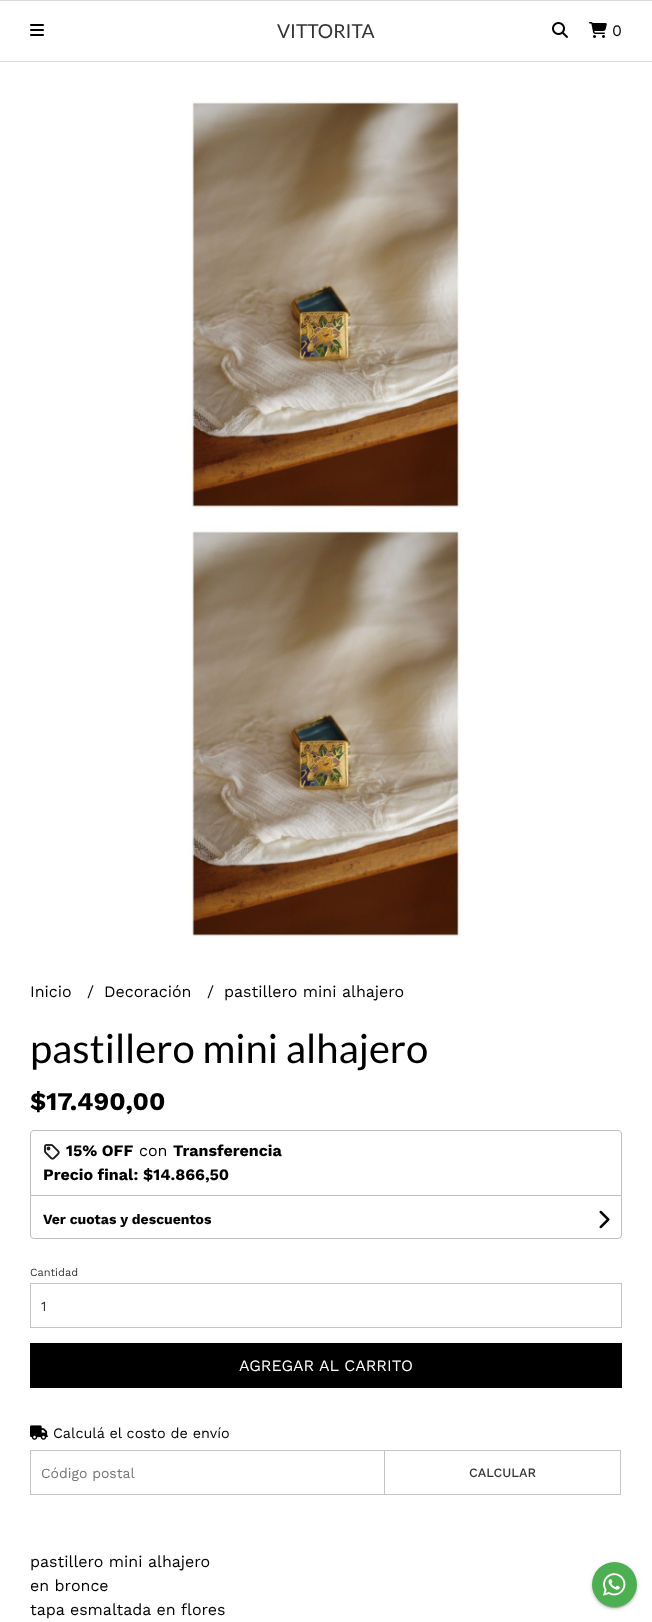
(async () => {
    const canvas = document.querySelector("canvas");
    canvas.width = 652;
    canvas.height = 1622;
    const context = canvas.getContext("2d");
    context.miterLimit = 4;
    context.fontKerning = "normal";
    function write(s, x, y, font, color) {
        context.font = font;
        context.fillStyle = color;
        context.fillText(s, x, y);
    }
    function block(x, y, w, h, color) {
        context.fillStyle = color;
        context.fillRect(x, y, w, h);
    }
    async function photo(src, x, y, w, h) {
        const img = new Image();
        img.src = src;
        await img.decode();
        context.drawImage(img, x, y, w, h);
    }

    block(0, 0, 652, 1622, "rgb(255, 255, 255)");
    block(0, 0, 652, 1, "rgb(217, 217, 217)");
    block(0, 61, 652, 1, "rgb(217, 217, 217)");
    await photo("media/1.png", 30, 24, 14, 12);
    write("VITTORITA", 277, 38, "19.25px Lato", "rgb(51, 51, 51)");
    await photo("media/2.png", 552, 22, 16, 16);
    await photo("media/3.png", 589, 22, 18, 16);
    write("0", 612, 36, "16px Work Sans", "rgb(0, 0, 0)");
    await photo("media/4.png", 188, 97, 272, 412);
    await photo("media/4.png", 188, 526, 272, 412);
    write("Inicio", 30, 997, "16px Work Sans", "rgb(0, 0, 0)");
    write("/", 87, 997, "16px Work Sans", "rgb(0, 0, 0)");
    write("Decoración", 104, 997, "16px Work Sans", "rgb(0, 0, 0)");
    write("/", 207, 997, "16px Work Sans", "rgb(0, 0, 0)");
    write("pastillero mini alhajero", 224, 997, "16px Work Sans", "rgb(0, 0, 0)");
    write("pastillero mini alhajero", 30, 1063, "40px Lato", "rgb(0, 0, 0)");
    write("$17.490,00", 30, 1110, "bold 25.5px Work Sans", "rgb(0, 0, 0)");
    context.fillStyle = "rgb(189, 189, 189)";
    context.beginPath();
    context.moveTo(34, 1130);
    context.lineTo(618, 1130);
    context.bezierCurveTo(620, 1130, 622, 1132, 622, 1134);
    context.lineTo(622, 1195);
    context.lineTo(30, 1195);
    context.lineTo(30, 1134);
    context.bezierCurveTo(30, 1132, 32, 1130, 34, 1130);
    context.closePath();
    context.moveTo(34, 1131);
    context.lineTo(618, 1131);
    context.bezierCurveTo(620, 1131, 621, 1132, 621, 1134);
    context.lineTo(621, 1195);
    context.lineTo(31, 1195);
    context.lineTo(31, 1134);
    context.bezierCurveTo(31, 1132, 32, 1131, 34, 1131);
    context.closePath();
    context.fill("evenodd");
    await photo("media/5.png", 44, 1144, 16, 16);
    write("15% OFF", 66, 1156, "bold 16px Work Sans", "rgb(0, 0, 0)");
    write("con", 139, 1156, "16px Work Sans", "rgb(0, 0, 0)");
    write("Transferencia", 173, 1156, "bold 16px Work Sans", "rgb(0, 0, 0)");
    write("Precio final: $14.866,50", 43, 1180, "bold 16px Work Sans", "rgb(0, 0, 0)");
    context.beginPath();
    context.roundRect(30.5, 1195.5, 591, 43, [0, 0, 3.5, 3.5]);
    context.strokeStyle = "rgb(189, 189, 189)";
    context.stroke();
    write("Ver cuotas y descuentos", 43, 1224, "bold 14px Work Sans", "rgb(0, 0, 0)");
    await photo("media/6.png", 599, 1210, 11, 19);
    write("Cantidad", 30, 1276, "11px Work Sans", "rgb(51, 51, 51)");
    context.strokeStyle = "rgb(196, 196, 196)";
    context.strokeRect(30.5, 1283.5, 591, 44);
    write("1", 41, 1311, "14px Work Sans", "rgb(51, 51, 51)");
    block(30, 1343, 592, 45, "rgb(0, 0, 0)");
    write("AGREGAR AL CARRITO", 239, 1371, "16px Work Sans", "rgb(255, 255, 255)");
    await photo("media/7.png", 30, 1425, 18, 15);
    write("Calculá el costo de envío", 53, 1438, "14.4px Work Sans", "rgb(0, 0, 0)");
    context.strokeRect(30.5, 1450.5, 354, 44);
    write("Código postal", 41, 1478, "14px Work Sans", "rgb(117, 117, 117)");
    context.strokeRect(384.5, 1450.5, 236, 44);
    write("CALCULAR", 469, 1477, "500 12.75px Work Sans", "rgb(51, 51, 51)");
    write("pastillero mini alhajero", 30, 1567, "16px Work Sans", "rgb(0, 0, 0)");
    write("en bronce", 30, 1591, "16px Work Sans", "rgb(0, 0, 0)");
    write("tapa esmaltada en flores", 30, 1615, "16px Work Sans", "rgb(0, 0, 0)");
    context.fillStyle = "rgba(0, 0, 0, 0.2)";
    context.filter = "blur(0.5px)";
    context.beginPath();
    context.roundRect(594, 1567, 41, 41, 20.5);
    context.fill();
    context.filter = "none";
    context.fillStyle = "rgba(0, 0, 0, 0.12)";
    context.filter = "blur(2.5px)";
    context.beginPath();
    context.roundRect(592, 1563, 45, 45, 22.5);
    context.fill();
    context.filter = "none";
    context.fillStyle = "rgba(0, 0, 0, 0.14)";
    context.filter = "blur(1px)";
    context.beginPath();
    context.roundRect(592, 1564, 45, 45, 22.5);
    context.fill();
    context.filter = "none";
    context.fillStyle = "rgb(76, 175, 80)";
    context.beginPath();
    context.arc(614.5, 1584.5, 22.5, 0, Math.PI * 2);
    context.fill();
    await photo("media/8.png", 603, 1573, 23, 23);
})();
